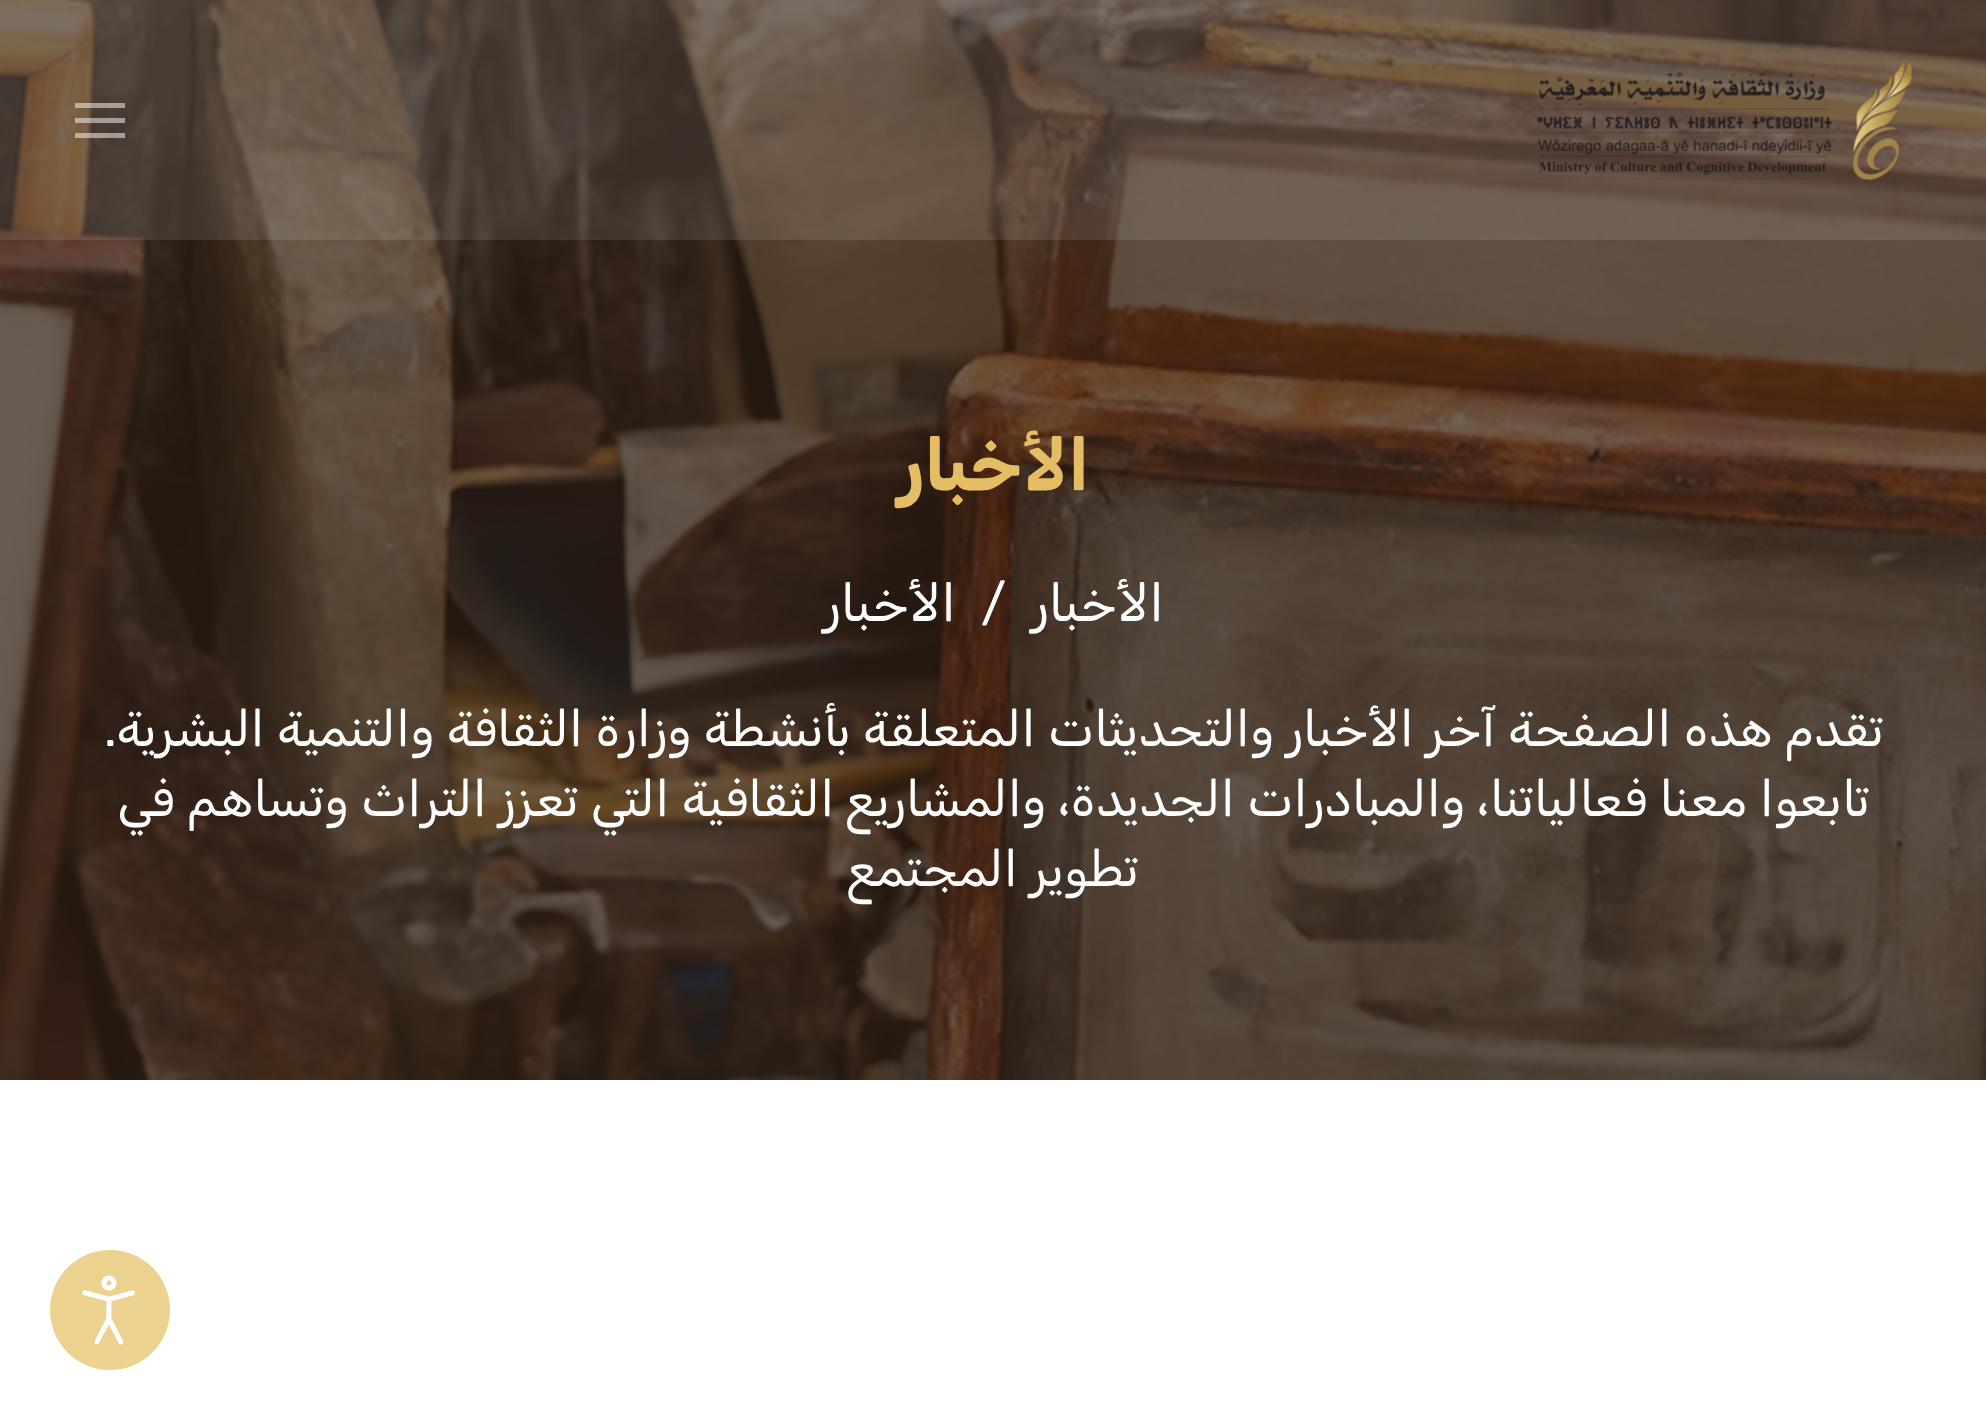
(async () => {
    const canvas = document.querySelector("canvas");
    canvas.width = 1986;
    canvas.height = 1418;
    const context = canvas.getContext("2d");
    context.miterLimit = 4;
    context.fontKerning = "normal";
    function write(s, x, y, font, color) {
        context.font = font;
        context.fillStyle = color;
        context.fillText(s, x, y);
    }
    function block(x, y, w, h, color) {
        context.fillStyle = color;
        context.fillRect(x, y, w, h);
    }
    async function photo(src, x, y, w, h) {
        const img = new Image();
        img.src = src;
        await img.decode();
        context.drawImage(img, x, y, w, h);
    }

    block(0, 0, 1986, 1418, "rgb(255, 255, 255)");
    await photo("media/2.png", 0, 0, 1986, 1080);
    block(0, 0, 1986, 240, "rgba(255, 255, 255, 0.1)");
    await photo("media/1.png", 1537, 61, 375, 119);
    block(75, 103, 50, 5, "rgba(255, 255, 255, 0.5)");
    block(75, 118, 50, 5, "rgba(255, 255, 255, 0.5)");
    block(75, 133, 50, 5, "rgba(255, 255, 255, 0.5)");
    context.direction = "rtl";
    write("الأخبار", 1090, 490, "300 72px Rubik", "rgb(228, 189, 101)");
    write("الأخبار", 1164, 621, "300 52px 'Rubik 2'", "rgb(255, 255, 255)");
    context.direction = "ltr";
    write("/", 981, 621, "300 52px 'Rubik 2'", "rgb(255, 255, 255)");
    context.direction = "rtl";
    write("الأخبار", 956, 621, "300 52px 'Rubik 2'", "rgb(255, 255, 255)");
    write("تقدم هذه الصفحة آخر الأخبار والتحديثات المتعلقة بأنشطة وزارة الثقافة والتنمية البشرية.", 1884, 746, "300 50px 'Rubik 2'", "rgb(255, 255, 255)");
    write("تابعوا معنا فعالياتنا، والمبادرات الجديدة، والمشاريع الثقافية التي تعزز التراث وتساهم في", 1870, 816, "300 50px 'Rubik 2'", "rgb(255, 255, 255)");
    write("تطوير المجتمع", 1139, 886, "300 50px 'Rubik 2'", "rgb(255, 255, 255)");
    context.fillStyle = "rgb(235, 210, 143)";
    context.beginPath();
    context.arc(110, 1310, 60, 0, Math.PI * 2);
    context.fill();
    await photo("media/3.png", 82, 1275, 54, 70);
})();
